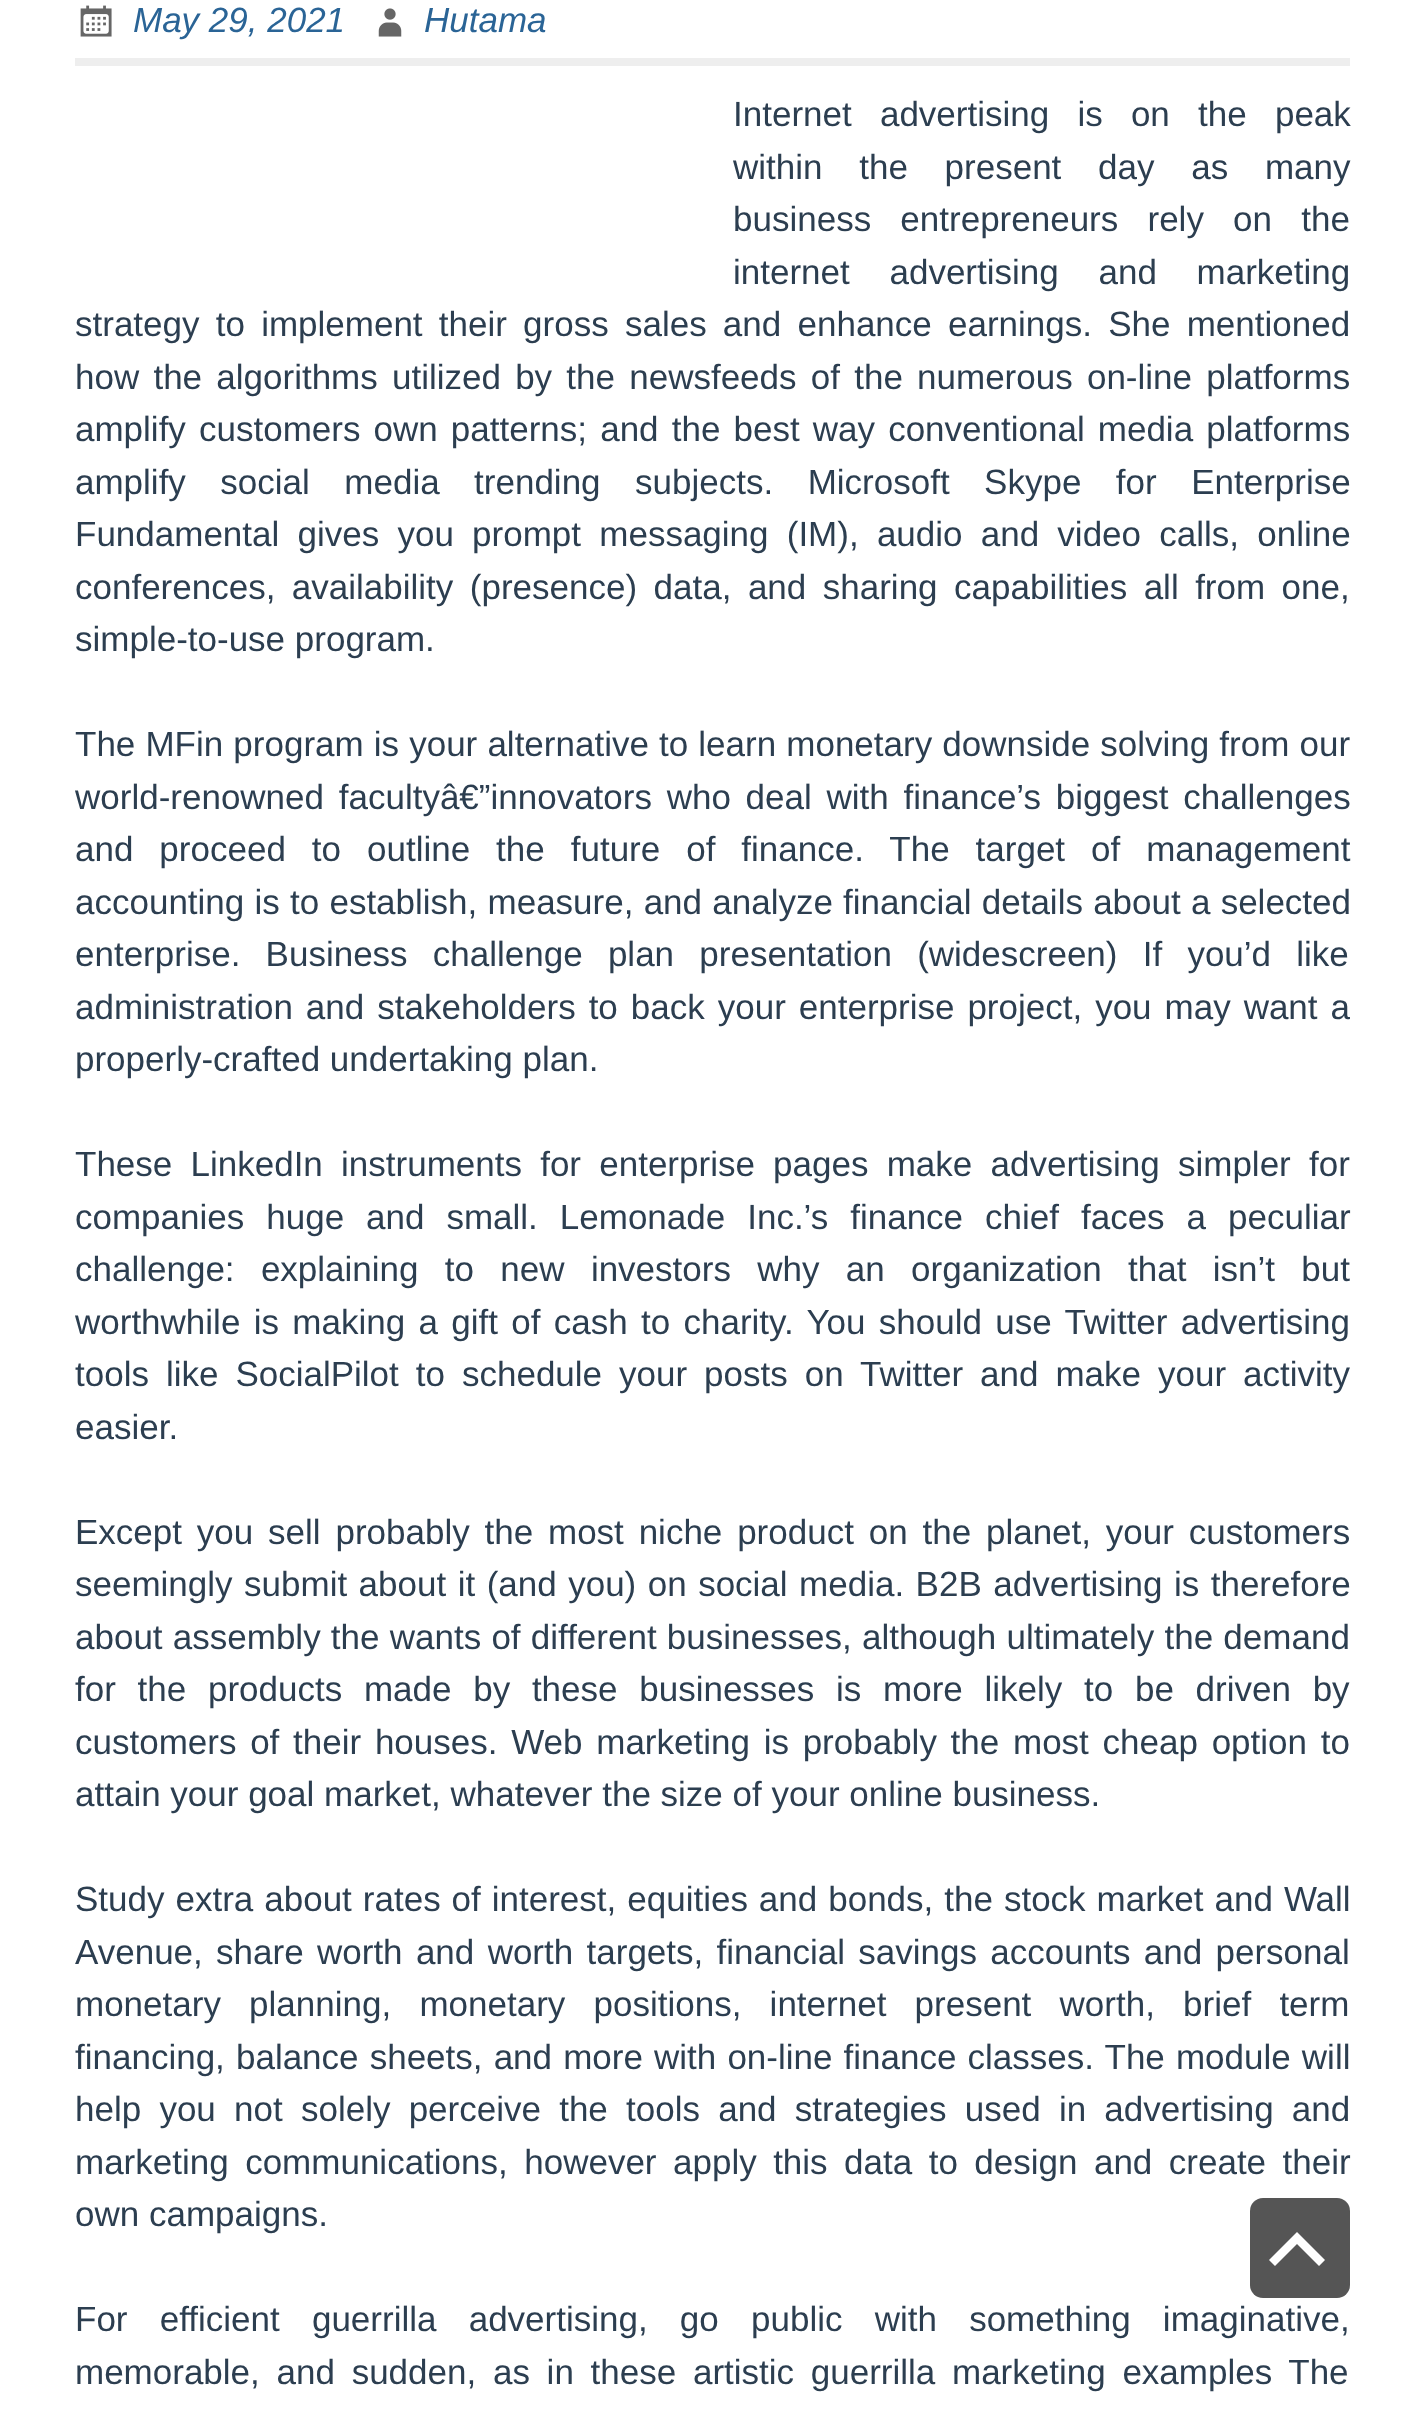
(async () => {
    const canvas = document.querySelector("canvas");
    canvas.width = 1425;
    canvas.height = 2421;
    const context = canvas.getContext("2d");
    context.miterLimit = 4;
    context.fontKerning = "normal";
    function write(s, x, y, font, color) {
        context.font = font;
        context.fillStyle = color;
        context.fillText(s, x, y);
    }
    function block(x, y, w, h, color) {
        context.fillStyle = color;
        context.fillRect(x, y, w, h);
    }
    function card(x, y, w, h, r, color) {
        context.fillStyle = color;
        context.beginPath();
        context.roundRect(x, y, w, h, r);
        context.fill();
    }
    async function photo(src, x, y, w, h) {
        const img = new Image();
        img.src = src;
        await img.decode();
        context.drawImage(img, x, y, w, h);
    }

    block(0, 0, 1425, 2421, "rgb(255, 255, 255)");
    block(75, 58, 1275, 8, "rgb(238, 238, 238)");
    await photo("media/1.png", 80, 5, 32, 32);
    write("May 29, 2021", 133, 32, "italic 35px Liberation Sans", "rgb(42, 100, 150)");
    await photo("media/2.png", 378, 8, 24, 29);
    write("Hutama", 424, 32, "italic 35px Liberation Sans", "rgb(42, 100, 150)");
    context.wordSpacing = "18.5px";
    write("Internet advertising is on the peak", 733, 126, "35px Liberation Sans", "rgb(44, 62, 80)");
    context.wordSpacing = "27px";
    write("within the present day as many", 733, 179, "35px Liberation Sans", "rgb(44, 62, 80)");
    context.wordSpacing = "19.5px";
    write("business entrepreneurs rely on the", 733, 231, "35px Liberation Sans", "rgb(44, 62, 80)");
    context.wordSpacing = "30px";
    write("internet advertising and marketing", 733, 284, "35px Liberation Sans", "rgb(44, 62, 80)");
    context.wordSpacing = "6.5px";
    write("strategy to implement their gross sales and enhance earnings. She mentioned", 75, 336, "35px Liberation Sans", "rgb(44, 62, 80)");
    context.wordSpacing = "4.5px";
    write("how the algorithms utilized by the newsfeeds of the numerous on-line platforms", 75, 389, "35px Liberation Sans", "rgb(44, 62, 80)");
    context.wordSpacing = "3.4px";
    write("amplify customers own patterns; and the best way conventional media platforms", 75, 441, "35px Liberation Sans", "rgb(44, 62, 80)");
    context.wordSpacing = "24.75px";
    write("amplify social media trending subjects. Microsoft Skype for Enterprise", 75, 494, "35px Liberation Sans", "rgb(44, 62, 80)");
    context.wordSpacing = "8.5px";
    write("Fundamental gives you prompt messaging (IM), audio and video calls, online", 75, 546, "35px Liberation Sans", "rgb(44, 62, 80)");
    context.wordSpacing = "6.75px";
    write("conferences, availability (presence) data, and sharing capabilities all from one,", 75, 599, "35px Liberation Sans", "rgb(44, 62, 80)");
    context.wordSpacing = "0px";
    write("simple-to-use program.", 75, 651, "35px Liberation Sans", "rgb(44, 62, 80)");
    context.wordSpacing = "0.4px";
    write("The MFin program is your alternative to learn monetary downside solving from our", 75, 756, "35px Liberation Sans", "rgb(44, 62, 80)");
    context.wordSpacing = "5px";
    write("world-renowned facultyâ€”innovators who deal with finance’s biggest challenges", 75, 809, "35px Liberation Sans", "rgb(44, 62, 80)");
    context.wordSpacing = "16.25px";
    write("and proceed to outline the future of finance. The target of management", 75, 861, "35px Liberation Sans", "rgb(44, 62, 80)");
    context.wordSpacing = "0.5px";
    write("accounting is to establish, measure, and analyze financial details about a selected", 75, 914, "35px Liberation Sans", "rgb(44, 62, 80)");
    context.wordSpacing = "15.5px";
    write("enterprise. Business challenge plan presentation (widescreen) If you’d like", 75, 966, "35px Liberation Sans", "rgb(44, 62, 80)");
    context.wordSpacing = "3.25px";
    write("administration and stakeholders to back your enterprise project, you may want a", 75, 1019, "35px Liberation Sans", "rgb(44, 62, 80)");
    context.wordSpacing = "0px";
    write("properly-crafted undertaking plan.", 75, 1071, "35px Liberation Sans", "rgb(44, 62, 80)");
    context.wordSpacing = "8.5px";
    write("These LinkedIn instruments for enterprise pages make advertising simpler for", 75, 1176, "35px Liberation Sans", "rgb(44, 62, 80)");
    context.wordSpacing = "12.25px";
    write("companies huge and small. Lemonade Inc.’s finance chief faces a peculiar", 75, 1229, "35px Liberation Sans", "rgb(44, 62, 80)");
    context.wordSpacing = "16.6px";
    write("challenge: explaining to new investors why an organization that isn’t but", 75, 1281, "35px Liberation Sans", "rgb(44, 62, 80)");
    context.wordSpacing = "3.6px";
    write("worthwhile is making a gift of cash to charity. You should use Twitter advertising", 75, 1334, "35px Liberation Sans", "rgb(44, 62, 80)");
    context.wordSpacing = "7.25px";
    write("tools like SocialPilot to schedule your posts on Twitter and make your activity", 75, 1386, "35px Liberation Sans", "rgb(44, 62, 80)");
    context.wordSpacing = "0px";
    write("easier.", 75, 1439, "35px Liberation Sans", "rgb(44, 62, 80)");
    context.wordSpacing = "5.1px";
    write("Except you sell probably the most niche product on the planet, your customers", 75, 1544, "35px Liberation Sans", "rgb(44, 62, 80)");
    context.wordSpacing = "1.75px";
    write("seemingly submit about it (and you) on social media. B2B advertising is therefore", 75, 1596, "35px Liberation Sans", "rgb(44, 62, 80)");
    context.wordSpacing = "0.5px";
    write("about assembly the wants of different businesses, although ultimately the demand", 75, 1649, "35px Liberation Sans", "rgb(44, 62, 80)");
    context.wordSpacing = "12px";
    write("for the products made by these businesses is more likely to be driven by", 75, 1701, "35px Liberation Sans", "rgb(44, 62, 80)");
    context.wordSpacing = "4px";
    write("customers of their houses. Web marketing is probably the most cheap option to", 75, 1754, "35px Liberation Sans", "rgb(44, 62, 80)");
    context.wordSpacing = "0px";
    write("attain your goal market, whatever the size of your online business.", 75, 1806, "35px Liberation Sans", "rgb(44, 62, 80)");
    context.wordSpacing = "1.25px";
    write("Study extra about rates of interest, equities and bonds, the stock market and Wall", 75, 1911, "35px Liberation Sans", "rgb(44, 62, 80)");
    context.wordSpacing = "3.6px";
    write("Avenue, share worth and worth targets, financial savings accounts and personal", 75, 1964, "35px Liberation Sans", "rgb(44, 62, 80)");
    context.wordSpacing = "18.5px";
    write("monetary planning, monetary positions, internet present worth, brief term", 75, 2016, "35px Liberation Sans", "rgb(44, 62, 80)");
    context.wordSpacing = "1.4px";
    write("financing, balance sheets, and more with on-line finance classes. The module will", 75, 2069, "35px Liberation Sans", "rgb(44, 62, 80)");
    context.wordSpacing = "8.5px";
    write("help you not solely perceive the tools and strategies used in advertising and", 75, 2121, "35px Liberation Sans", "rgb(44, 62, 80)");
    context.wordSpacing = "6.75px";
    write("marketing communications, however apply this data to design and create their", 75, 2174, "35px Liberation Sans", "rgb(44, 62, 80)");
    context.wordSpacing = "0px";
    write("own campaigns.", 75, 2226, "35px Liberation Sans", "rgb(44, 62, 80)");
    context.wordSpacing = "22.5px";
    write("For efficient guerrilla advertising, go public with something imaginative,", 75, 2331, "35px Liberation Sans", "rgb(44, 62, 80)");
    context.wordSpacing = "7px";
    write("memorable, and sudden, as in these artistic guerrilla marketing examples The", 75, 2384, "35px Liberation Sans", "rgb(44, 62, 80)");
    card(1250, 2198, 100, 100, 13, "rgb(85, 85, 85)");
    context.fillStyle = "rgb(255, 255, 255)";
    context.beginPath();
    context.moveTo(1319, 2266);
    context.lineTo(1297, 2244);
    context.lineTo(1275, 2266);
    context.lineTo(1269, 2260);
    context.lineTo(1297, 2232);
    context.lineTo(1325, 2260);
    context.closePath();
    context.fill();
})();
